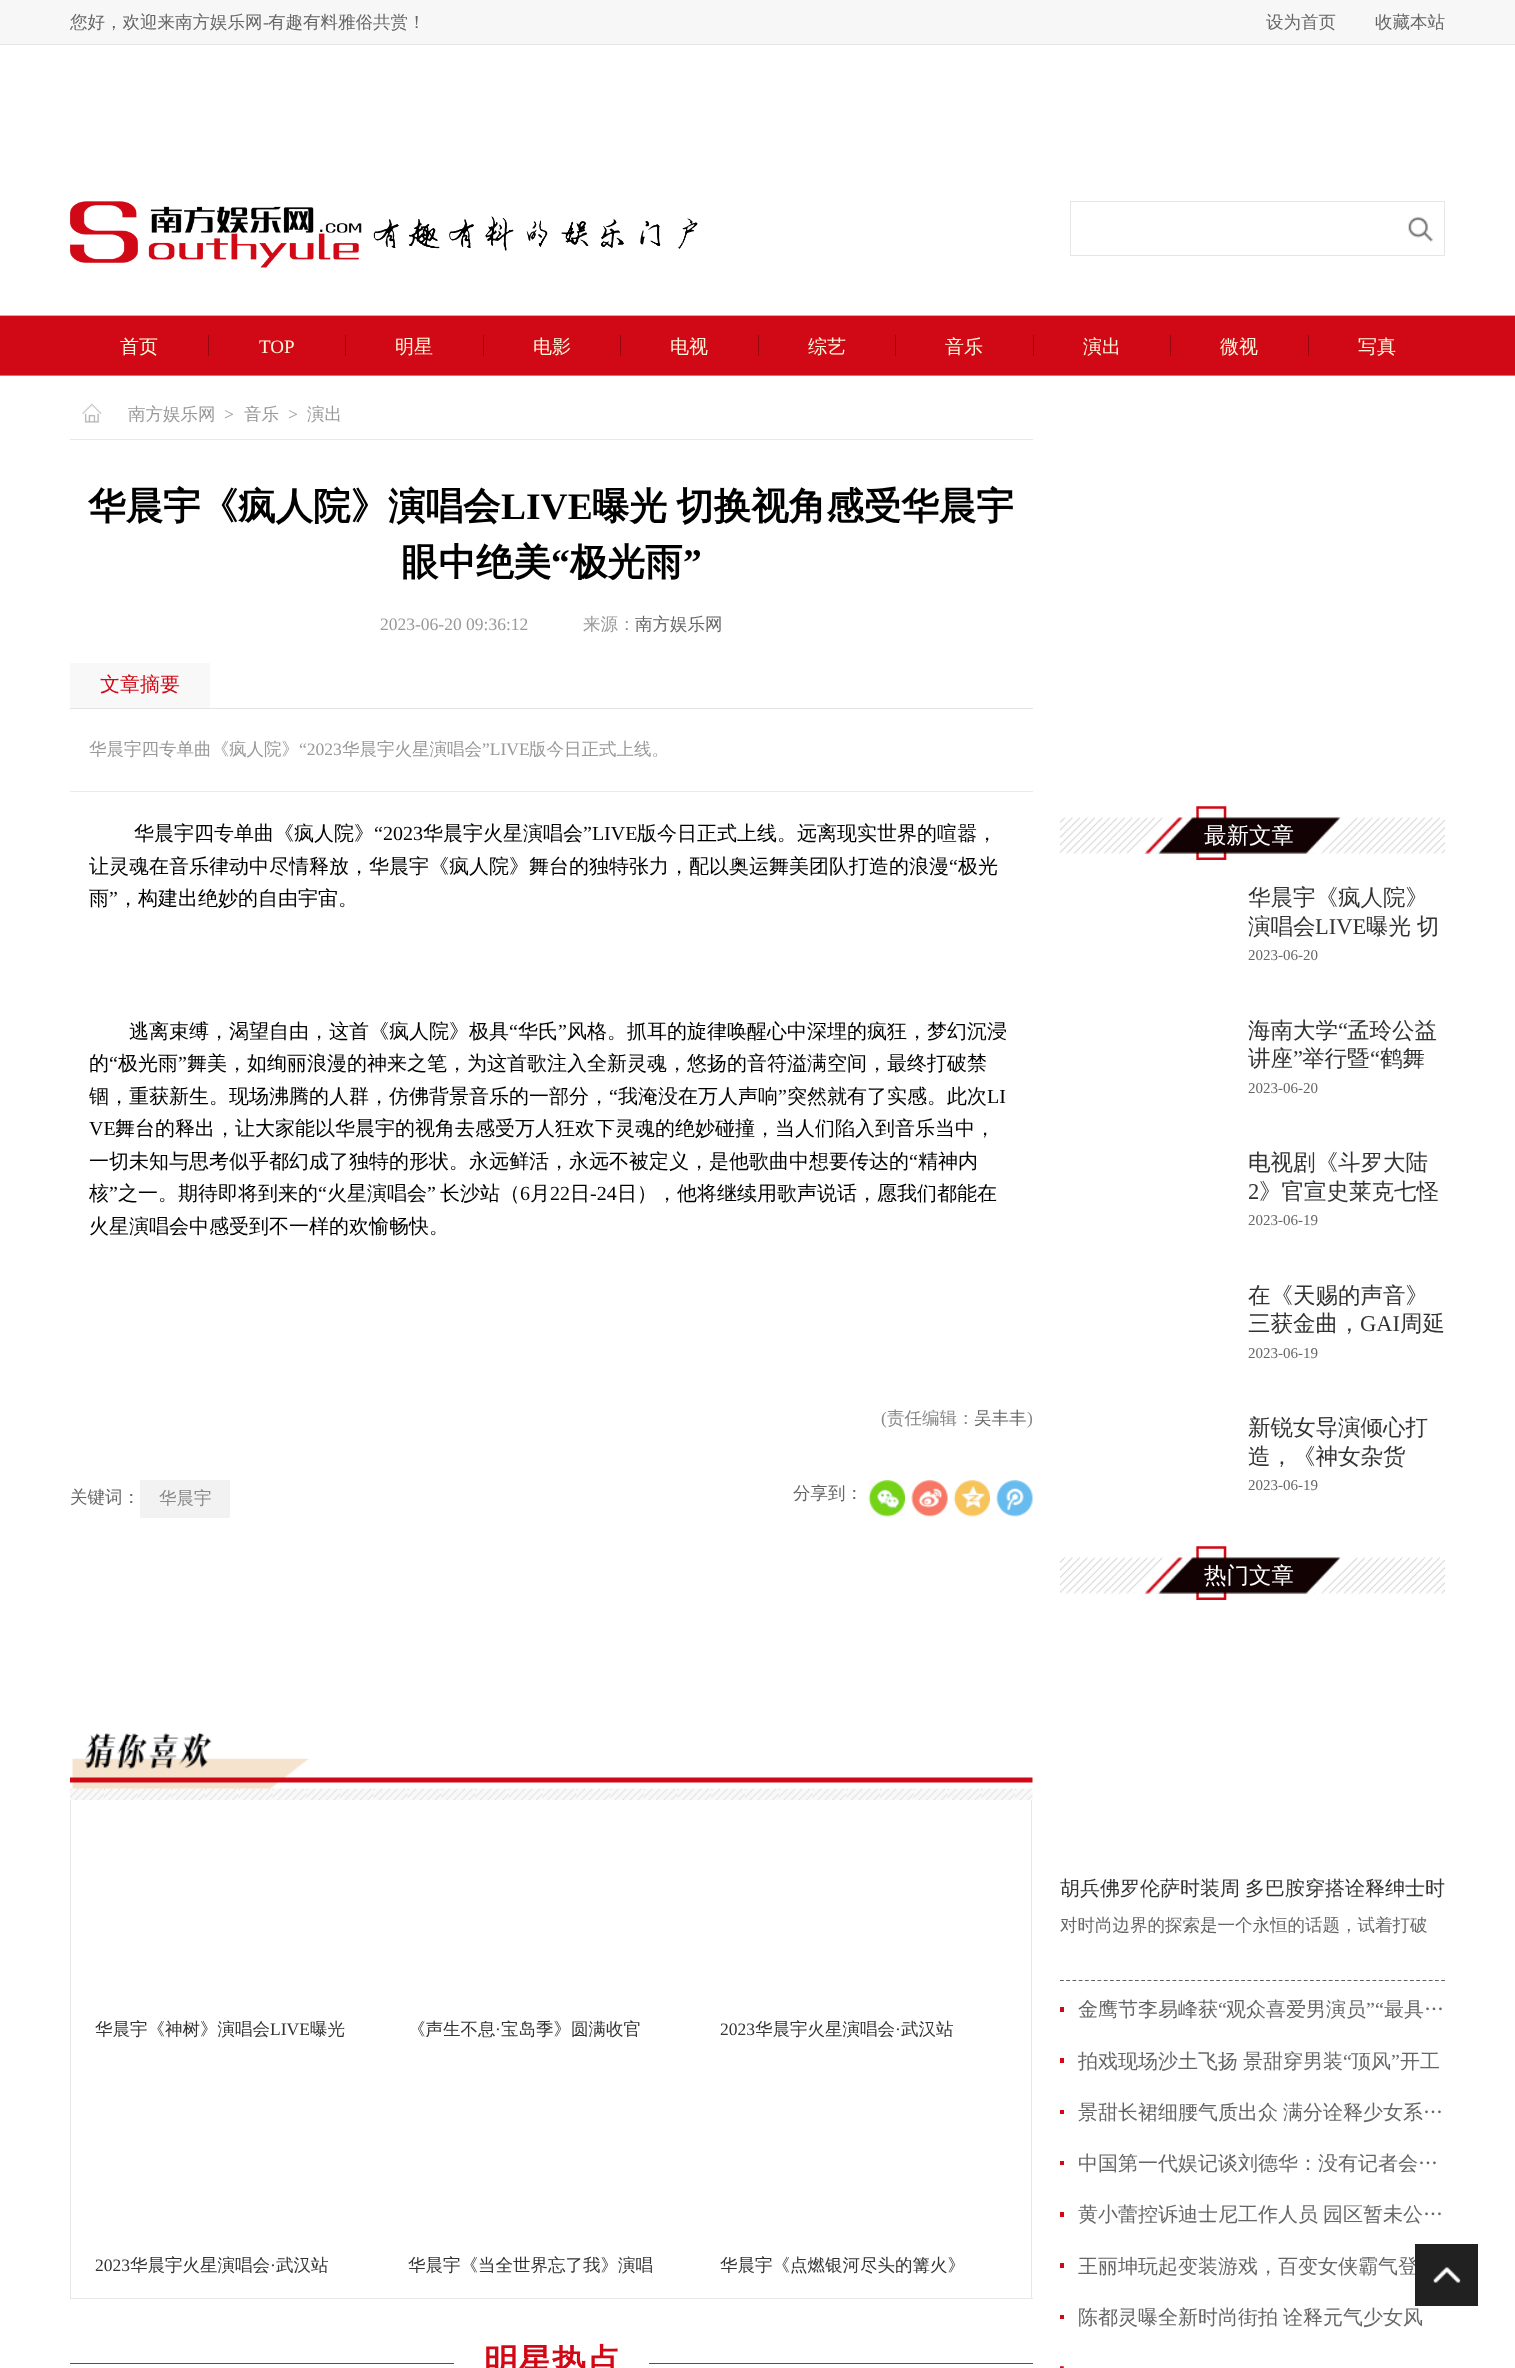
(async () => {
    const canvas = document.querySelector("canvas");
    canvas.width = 1515;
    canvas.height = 2368;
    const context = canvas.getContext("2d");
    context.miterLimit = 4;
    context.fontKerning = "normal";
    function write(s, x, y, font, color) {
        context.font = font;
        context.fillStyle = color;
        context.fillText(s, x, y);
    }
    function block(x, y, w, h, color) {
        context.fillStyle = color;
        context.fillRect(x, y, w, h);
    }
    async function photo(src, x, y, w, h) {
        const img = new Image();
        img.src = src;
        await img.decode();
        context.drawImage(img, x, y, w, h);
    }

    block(0, 0, 1515, 2368, "rgb(255, 255, 255)");
    block(0, 0, 1515, 44, "rgb(247, 247, 247)");
    block(0, 44, 1515, 1, "rgb(230, 230, 230)");
    write("您好，欢迎来南方娱乐网", 70, 28, "500 17.5px WenQuanYi Zen Hei", "rgb(102, 102, 102)");
    write("-", 263, 28, "17.5px Liberation Serif", "rgb(102, 102, 102)");
    write("有趣有料雅俗共赏！", 268, 28, "500 17.5px WenQuanYi Zen Hei", "rgb(102, 102, 102)");
    write("设为首页", 1266, 28, "500 17.5px WenQuanYi Zen Hei", "rgb(102, 102, 102)");
    write("收藏本站", 1375, 28, "500 17.5px WenQuanYi Zen Hei", "rgb(102, 102, 102)");
    await photo("media/1.png", 70, 201, 292, 67);
    await photo("media/2.png", 373, 216, 325, 35);
    context.strokeStyle = "rgb(230, 230, 230)";
    context.strokeRect(1070.5, 201.5, 374, 54);
    await photo("media/3.png", 1408, 217, 25, 25);
    block(0, 316, 1515, 59, "rgb(209, 9, 22)");
    block(0, 315, 1515, 1, "rgb(237, 157, 162)");
    block(0, 375, 1515, 1, "rgb(227, 107, 115)");
    block(208, 335, 1, 21, "rgb(149, 8, 17)");
    write("首页", 120, 353, "500 19px WenQuanYi Zen Hei", "rgb(254, 248, 219)");
    block(345, 335, 1, 21, "rgb(149, 8, 17)");
    write("TOP", 259, 353, "19px Liberation Serif", "rgb(254, 248, 219)");
    block(483, 335, 1, 21, "rgb(149, 8, 17)");
    write("明星", 395, 353, "500 19px WenQuanYi Zen Hei", "rgb(254, 248, 219)");
    block(620, 335, 1, 21, "rgb(149, 8, 17)");
    write("电影", 533, 353, "500 19px WenQuanYi Zen Hei", "rgb(254, 248, 219)");
    block(758, 335, 1, 21, "rgb(149, 8, 17)");
    write("电视", 670, 353, "500 19px WenQuanYi Zen Hei", "rgb(254, 248, 219)");
    block(895, 335, 1, 21, "rgb(149, 8, 17)");
    write("综艺", 808, 353, "500 19px WenQuanYi Zen Hei", "rgb(254, 248, 219)");
    block(1033, 335, 1, 21, "rgb(149, 8, 17)");
    write("音乐", 945, 353, "500 19px WenQuanYi Zen Hei", "rgb(254, 248, 219)");
    block(1170, 335, 1, 21, "rgb(149, 8, 17)");
    write("演出", 1083, 353, "500 19px WenQuanYi Zen Hei", "rgb(254, 248, 219)");
    block(1308, 335, 1, 21, "rgb(149, 8, 17)");
    write("微视", 1220, 353, "500 19px WenQuanYi Zen Hei", "rgb(254, 248, 219)");
    write("写真", 1358, 353, "500 19px WenQuanYi Zen Hei", "rgb(254, 248, 219)");
    await photo("media/4.png", 82, 403, 20, 20);
    block(70, 439, 963, 1, "rgb(232, 232, 232)");
    write("南方娱乐网", 128, 420, "500 17.5px WenQuanYi Zen Hei", "rgb(153, 153, 153)");
    write(">", 224, 420, "17.5px Liberation Serif", "rgb(153, 153, 153)");
    write("音乐", 244, 420, "500 17.5px WenQuanYi Zen Hei", "rgb(153, 153, 153)");
    write(">", 288, 420, "17.5px Liberation Serif", "rgb(153, 153, 153)");
    write("演出", 307, 420, "500 17.5px WenQuanYi Zen Hei", "rgb(153, 153, 153)");
    write("华晨宇《疯人院》演唱会", 88, 519, "bold 37.5px WenQuanYi Zen Hei", "rgb(0, 0, 0)");
    write("LIVE", 501, 519, "bold 37.5px Liberation Serif", "rgb(0, 0, 0)");
    context.wordSpacing = "-2px";
    write("曝光 切换视角感受华晨宇", 592, 519, "bold 37.5px WenQuanYi Zen Hei", "rgb(0, 0, 0)");
    context.wordSpacing = "0px";
    write("眼中绝美", 401, 575, "bold 37.5px WenQuanYi Zen Hei", "rgb(0, 0, 0)");
    write("“", 551, 575, "bold 37.5px Liberation Serif", "rgb(0, 0, 0)");
    write("极光雨", 570, 575, "bold 37.5px WenQuanYi Zen Hei", "rgb(0, 0, 0)");
    write("”", 683, 575, "bold 37.5px Liberation Serif", "rgb(0, 0, 0)");
    write("2023-06-20 09:36:12", 380, 630, "17.5px Liberation Serif", "rgb(153, 153, 153)");
    write("来源：", 583, 630, "500 17.5px WenQuanYi Zen Hei", "rgb(153, 153, 153)");
    write("南方娱乐网", 635, 630, "500 17.5px WenQuanYi Zen Hei", "rgb(102, 102, 102)");
    block(70, 708, 963, 1, "rgb(227, 227, 227)");
    block(70, 663, 140, 45, "rgb(248, 248, 248)");
    write("文章摘要", 100, 691, "500 20px WenQuanYi Zen Hei", "rgb(209, 9, 22)");
    block(70, 791, 963, 1, "rgb(234, 234, 234)");
    write("华晨宇四专单曲《疯人院》", 89, 755, "500 17.5px WenQuanYi Zen Hei", "rgb(153, 153, 153)");
    write("“2023", 299, 755, "17.5px Liberation Serif", "rgb(153, 153, 153)");
    write("华晨宇火星演唱会", 342, 755, "500 17.5px WenQuanYi Zen Hei", "rgb(153, 153, 153)");
    write("”LIVE", 482, 755, "17.5px Liberation Serif", "rgb(153, 153, 153)");
    write("版今日正式上线。", 529, 755, "500 17.5px WenQuanYi Zen Hei", "rgb(153, 153, 153)");
    write("华晨宇四专单曲《疯人院》", 134, 840, "500 20px WenQuanYi Zen Hei", "rgb(0, 0, 0)");
    write("“2023", 374, 840, "20px Liberation Serif", "rgb(0, 0, 0)");
    write("华晨宇火星演唱会", 423, 840, "500 20px WenQuanYi Zen Hei", "rgb(0, 0, 0)");
    write("”LIVE", 583, 840, "20px Liberation Serif", "rgb(0, 0, 0)");
    write("版今日正式上线。远离现实世界的喧嚣，", 637, 840, "500 20px WenQuanYi Zen Hei", "rgb(0, 0, 0)");
    write("让灵魂在音乐律动中尽情释放，华晨宇《疯人院》舞台的独特张力，配以奥运舞美团队打造的浪漫", 89, 873, "500 20px WenQuanYi Zen Hei", "rgb(0, 0, 0)");
    write("“", 949, 873, "20px Liberation Serif", "rgb(0, 0, 0)");
    write("极光", 958, 873, "500 20px WenQuanYi Zen Hei", "rgb(0, 0, 0)");
    write("雨", 89, 905, "500 20px WenQuanYi Zen Hei", "rgb(0, 0, 0)");
    write("”", 109, 905, "20px Liberation Serif", "rgb(0, 0, 0)");
    write("，构建出绝妙的自由宇宙。", 118, 905, "500 20px WenQuanYi Zen Hei", "rgb(0, 0, 0)");
    write("逃离束缚，渴望自由，这首《疯人院》极具", 129, 1038, "500 20px WenQuanYi Zen Hei", "rgb(0, 0, 0)");
    write("“", 509, 1038, "20px Liberation Serif", "rgb(0, 0, 0)");
    write("华氏", 518, 1038, "500 20px WenQuanYi Zen Hei", "rgb(0, 0, 0)");
    write("”", 558, 1038, "20px Liberation Serif", "rgb(0, 0, 0)");
    write("风格。抓耳的旋律唤醒心中深埋的疯狂，梦幻沉浸", 567, 1038, "500 20px WenQuanYi Zen Hei", "rgb(0, 0, 0)");
    write("的", 89, 1070, "500 20px WenQuanYi Zen Hei", "rgb(0, 0, 0)");
    write("“", 109, 1070, "20px Liberation Serif", "rgb(0, 0, 0)");
    write("极光雨", 118, 1070, "500 20px WenQuanYi Zen Hei", "rgb(0, 0, 0)");
    write("”", 178, 1070, "20px Liberation Serif", "rgb(0, 0, 0)");
    write("舞美，如绚丽浪漫的神来之笔，为这首歌注入全新灵魂，悠扬的音符溢满空间，最终打破禁", 187, 1070, "500 20px WenQuanYi Zen Hei", "rgb(0, 0, 0)");
    write("锢，重获新生。现场沸腾的人群，仿佛背景音乐的一部分，", 89, 1103, "500 20px WenQuanYi Zen Hei", "rgb(0, 0, 0)");
    write("“", 609, 1103, "20px Liberation Serif", "rgb(0, 0, 0)");
    write("我淹没在万人声响", 618, 1103, "500 20px WenQuanYi Zen Hei", "rgb(0, 0, 0)");
    write("”", 778, 1103, "20px Liberation Serif", "rgb(0, 0, 0)");
    write("突然就有了实感。此次", 787, 1103, "500 20px WenQuanYi Zen Hei", "rgb(0, 0, 0)");
    write("LI", 987, 1103, "20px Liberation Serif", "rgb(0, 0, 0)");
    write("VE", 89, 1135, "20px Liberation Serif", "rgb(0, 0, 0)");
    write("舞台的释出，让大家能以华晨宇的视角去感受万人狂欢下灵魂的绝妙碰撞，当人们陷入到音乐当中，", 115, 1135, "500 20px WenQuanYi Zen Hei", "rgb(0, 0, 0)");
    write("一切未知与思考似乎都幻成了独特的形状。永远鲜活，永远不被定义，是他歌曲中想要传达的", 89, 1168, "500 20px WenQuanYi Zen Hei", "rgb(0, 0, 0)");
    write("“", 909, 1168, "20px Liberation Serif", "rgb(0, 0, 0)");
    write("精神内", 918, 1168, "500 20px WenQuanYi Zen Hei", "rgb(0, 0, 0)");
    write("核", 89, 1200, "500 20px WenQuanYi Zen Hei", "rgb(0, 0, 0)");
    write("”", 109, 1200, "20px Liberation Serif", "rgb(0, 0, 0)");
    write("之一。期待即将到来的", 118, 1200, "500 20px WenQuanYi Zen Hei", "rgb(0, 0, 0)");
    write("“", 318, 1200, "20px Liberation Serif", "rgb(0, 0, 0)");
    write("火星演唱会", 327, 1200, "500 20px WenQuanYi Zen Hei", "rgb(0, 0, 0)");
    write("”", 427, 1200, "20px Liberation Serif", "rgb(0, 0, 0)");
    write("长沙站（", 440, 1200, "500 20px WenQuanYi Zen Hei", "rgb(0, 0, 0)");
    write("6", 520, 1200, "20px Liberation Serif", "rgb(0, 0, 0)");
    write("月", 530, 1200, "500 20px WenQuanYi Zen Hei", "rgb(0, 0, 0)");
    write("22", 550, 1200, "20px Liberation Serif", "rgb(0, 0, 0)");
    write("日", 570, 1200, "500 20px WenQuanYi Zen Hei", "rgb(0, 0, 0)");
    write("-24", 590, 1200, "20px Liberation Serif", "rgb(0, 0, 0)");
    write("日），他将继续用歌声说话，愿我们都能在", 617, 1200, "500 20px WenQuanYi Zen Hei", "rgb(0, 0, 0)");
    write("火星演唱会中感受到不一样的欢愉畅快。", 89, 1233, "500 20px WenQuanYi Zen Hei", "rgb(0, 0, 0)");
    write("(", 881, 1424, "17.5px Liberation Serif", "rgb(136, 136, 136)");
    write("责任编辑：", 887, 1424, "500 17.5px WenQuanYi Zen Hei", "rgb(136, 136, 136)");
    write("吴丰丰", 974, 1424, "500 17.5px WenQuanYi Zen Hei", "rgb(102, 102, 102)");
    write(")", 1027, 1424, "17.5px Liberation Serif", "rgb(136, 136, 136)");
    write("关键词：", 70, 1503, "500 17.5px WenQuanYi Zen Hei", "rgb(102, 102, 102)");
    block(140, 1480, 90, 38, "rgb(242, 242, 242)");
    write("华晨宇", 159, 1504, "500 17.5px WenQuanYi Zen Hei", "rgb(136, 136, 136)");
    write("分享到：", 793, 1499, "500 17.5px WenQuanYi Zen Hei", "rgb(102, 102, 102)");
    await photo("media/5.png", 868, 1480, 37, 37);
    await photo("media/6.png", 911, 1480, 37, 37);
    await photo("media/7.png", 953, 1480, 37, 37);
    await photo("media/8.png", 996, 1480, 37, 37);
    await photo("media/9.png", 70, 1758, 963, 31);
    await photo("media/10.png", 85, 1732, 127, 37);
    await photo("media/11.png", 70, 1788, 963, 12);
    block(1031, 1800, 1, 499, "rgb(232, 232, 232)");
    block(70, 2298, 963, 1, "rgb(232, 232, 232)");
    block(70, 1800, 1, 499, "rgb(232, 232, 232)");
    write("华晨宇《神树》演唱会", 95, 2035, "500 17.5px WenQuanYi Zen Hei", "rgb(51, 51, 51)");
    write("LIVE", 270, 2035, "17.5px Liberation Serif", "rgb(51, 51, 51)");
    write("曝光", 310, 2035, "500 17.5px WenQuanYi Zen Hei", "rgb(51, 51, 51)");
    write("《声生不息", 408, 2035, "500 17.5px WenQuanYi Zen Hei", "rgb(51, 51, 51)");
    write("·", 495, 2035, "17.5px Liberation Serif", "rgb(51, 51, 51)");
    write("宝岛季》圆满收官", 501, 2035, "500 17.5px WenQuanYi Zen Hei", "rgb(51, 51, 51)");
    write("2023", 720, 2035, "17.5px Liberation Serif", "rgb(51, 51, 51)");
    write("华晨宇火星演唱会", 755, 2035, "500 17.5px WenQuanYi Zen Hei", "rgb(51, 51, 51)");
    write("·", 895, 2035, "17.5px Liberation Serif", "rgb(51, 51, 51)");
    write("武汉站", 901, 2035, "500 17.5px WenQuanYi Zen Hei", "rgb(51, 51, 51)");
    write("2023", 95, 2271, "17.5px Liberation Serif", "rgb(51, 51, 51)");
    write("华晨宇火星演唱会", 130, 2271, "500 17.5px WenQuanYi Zen Hei", "rgb(51, 51, 51)");
    write("·", 270, 2271, "17.5px Liberation Serif", "rgb(51, 51, 51)");
    write("武汉站", 276, 2271, "500 17.5px WenQuanYi Zen Hei", "rgb(51, 51, 51)");
    write("华晨宇《当全世界忘了我》演唱", 408, 2271, "500 17.5px WenQuanYi Zen Hei", "rgb(51, 51, 51)");
    write("华晨宇《点燃银河尽头的篝火》", 720, 2271, "500 17.5px WenQuanYi Zen Hei", "rgb(51, 51, 51)");
    block(70, 2363, 963, 1, "rgb(81, 81, 81)");
    block(454, 2363, 195, 1, "rgb(255, 255, 255)");
    write("明星热点", 484, 2373, "bold 34px WenQuanYi Zen Hei", "rgb(209, 9, 22)");
    await photo("media/12.png", 1060, 806, 385, 54);
    write("最新文章", 1204, 843, "500 22.5px WenQuanYi Zen Hei", "rgb(255, 255, 255)");
    write("华晨宇《疯人院》", 1248, 905, "500 22.5px WenQuanYi Zen Hei", "rgb(51, 51, 51)");
    write("演唱会", 1248, 934, "500 22.5px WenQuanYi Zen Hei", "rgb(51, 51, 51)");
    write("LIVE", 1315, 934, "22.5px Liberation Serif", "rgb(51, 51, 51)");
    context.wordSpacing = "-1px";
    write("曝光 切", 1366, 934, "500 22.5px WenQuanYi Zen Hei", "rgb(51, 51, 51)");
    context.wordSpacing = "0px";
    write("2023-06-20", 1248, 960, "15px Liberation Serif", "rgb(102, 102, 102)");
    write("海南大学", 1248, 1038, "500 22.5px WenQuanYi Zen Hei", "rgb(51, 51, 51)");
    write("“", 1338, 1038, "22.5px Liberation Serif", "rgb(51, 51, 51)");
    write("孟玲公益", 1347, 1038, "500 22.5px WenQuanYi Zen Hei", "rgb(51, 51, 51)");
    write("讲座", 1248, 1066, "500 22.5px WenQuanYi Zen Hei", "rgb(51, 51, 51)");
    write("”", 1293, 1066, "22.5px Liberation Serif", "rgb(51, 51, 51)");
    write("举行暨", 1302, 1066, "500 22.5px WenQuanYi Zen Hei", "rgb(51, 51, 51)");
    write("“", 1370, 1066, "22.5px Liberation Serif", "rgb(51, 51, 51)");
    write("鹤舞", 1380, 1066, "500 22.5px WenQuanYi Zen Hei", "rgb(51, 51, 51)");
    write("2023-06-20", 1248, 1093, "15px Liberation Serif", "rgb(102, 102, 102)");
    write("电视剧《斗罗大陆", 1248, 1170, "500 22.5px WenQuanYi Zen Hei", "rgb(51, 51, 51)");
    write("2", 1248, 1199, "22.5px Liberation Serif", "rgb(51, 51, 51)");
    write("》官宣史莱克七怪", 1259, 1199, "500 22.5px WenQuanYi Zen Hei", "rgb(51, 51, 51)");
    write("2023-06-19", 1248, 1225, "15px Liberation Serif", "rgb(102, 102, 102)");
    write("在《天赐的声音》", 1248, 1303, "500 22.5px WenQuanYi Zen Hei", "rgb(51, 51, 51)");
    write("三获金曲，", 1248, 1331, "500 22.5px WenQuanYi Zen Hei", "rgb(51, 51, 51)");
    write("GAI", 1360, 1331, "22.5px Liberation Serif", "rgb(51, 51, 51)");
    write("周延", 1400, 1331, "500 22.5px WenQuanYi Zen Hei", "rgb(51, 51, 51)");
    write("2023-06-19", 1248, 1358, "15px Liberation Serif", "rgb(102, 102, 102)");
    write("新锐女导演倾心打", 1248, 1435, "500 22.5px WenQuanYi Zen Hei", "rgb(51, 51, 51)");
    write("造，《神女杂货", 1248, 1464, "500 22.5px WenQuanYi Zen Hei", "rgb(51, 51, 51)");
    write("2023-06-19", 1248, 1490, "15px Liberation Serif", "rgb(102, 102, 102)");
    await photo("media/13.png", 1060, 1546, 385, 54);
    write("热门文章", 1204, 1583, "500 22.5px WenQuanYi Zen Hei", "rgb(255, 255, 255)");
    context.beginPath();
    context.moveTo(1060, 1980.5);
    context.lineTo(1445, 1980.5);
    context.strokeStyle = "rgb(95, 95, 95)";
    context.lineWidth = 1.2;
    context.setLineDash([3.75, 2.5]);
    context.stroke();
    context.wordSpacing = "-1px";
    write("胡兵佛罗伦萨时装周 多巴胺穿搭诠释绅士时", 1060, 1895, "500 20px WenQuanYi Zen Hei", "rgb(51, 51, 51)");
    context.wordSpacing = "0px";
    write("对时尚边界的探索是一个永恒的话题，试着打破", 1060, 1931, "500 17.5px WenQuanYi Zen Hei", "rgb(102, 102, 102)");
    block(1060, 2007, 4, 5, "rgb(209, 9, 22)");
    write("金鹰节李易峰获", 1078, 2016, "500 20px WenQuanYi Zen Hei", "rgb(102, 102, 102)");
    write("“", 1218, 2016, "20px Liberation Serif", "rgb(102, 102, 102)");
    write("观众喜爱男演员", 1226, 2016, "500 20px WenQuanYi Zen Hei", "rgb(102, 102, 102)");
    write("”“", 1366, 2016, "20px Liberation Serif", "rgb(102, 102, 102)");
    write("最具…", 1384, 2016, "500 20px WenQuanYi Zen Hei", "rgb(102, 102, 102)");
    block(1060, 2058, 4, 5, "rgb(209, 9, 22)");
    context.wordSpacing = "-1px";
    write("拍戏现场沙土飞扬 景甜穿男装", 1078, 2068, "500 20px WenQuanYi Zen Hei", "rgb(102, 102, 102)");
    context.wordSpacing = "0px";
    write("“", 1343, 2068, "20px Liberation Serif", "rgb(102, 102, 102)");
    write("顶风", 1351, 2068, "500 20px WenQuanYi Zen Hei", "rgb(102, 102, 102)");
    write("”", 1391, 2068, "20px Liberation Serif", "rgb(102, 102, 102)");
    write("开工", 1400, 2068, "500 20px WenQuanYi Zen Hei", "rgb(102, 102, 102)");
    block(1060, 2110, 4, 4, "rgb(209, 9, 22)");
    context.wordSpacing = "-1px";
    write("景甜长裙细腰气质出众 满分诠释少女系…", 1078, 2119, "500 20px WenQuanYi Zen Hei", "rgb(102, 102, 102)");
    block(1060, 2161, 4, 4, "rgb(209, 9, 22)");
    context.wordSpacing = "0px";
    write("中国第一代娱记谈刘德华：没有记者会…", 1078, 2170, "500 20px WenQuanYi Zen Hei", "rgb(102, 102, 102)");
    block(1060, 2212, 4, 5, "rgb(209, 9, 22)");
    context.wordSpacing = "-1px";
    write("黄小蕾控诉迪士尼工作人员 园区暂未公…", 1078, 2221, "500 20px WenQuanYi Zen Hei", "rgb(102, 102, 102)");
    block(1060, 2263, 4, 5, "rgb(209, 9, 22)");
    context.wordSpacing = "0px";
    write("王丽坤玩起变装游戏，百变女侠霸气登", 1078, 2273, "500 20px WenQuanYi Zen Hei", "rgb(102, 102, 102)");
    block(1060, 2315, 4, 4, "rgb(209, 9, 22)");
    context.wordSpacing = "-1px";
    write("陈都灵曝全新时尚街拍 诠释元气少女风", 1078, 2324, "500 20px WenQuanYi Zen Hei", "rgb(102, 102, 102)");
    await photo("media/14.png", 1060, 2366, 4, 2);
    block(1415, 2244, 63, 62, "rgb(33, 33, 33)");
    await photo("media/15.png", 1433, 2267, 28, 16);
})();
